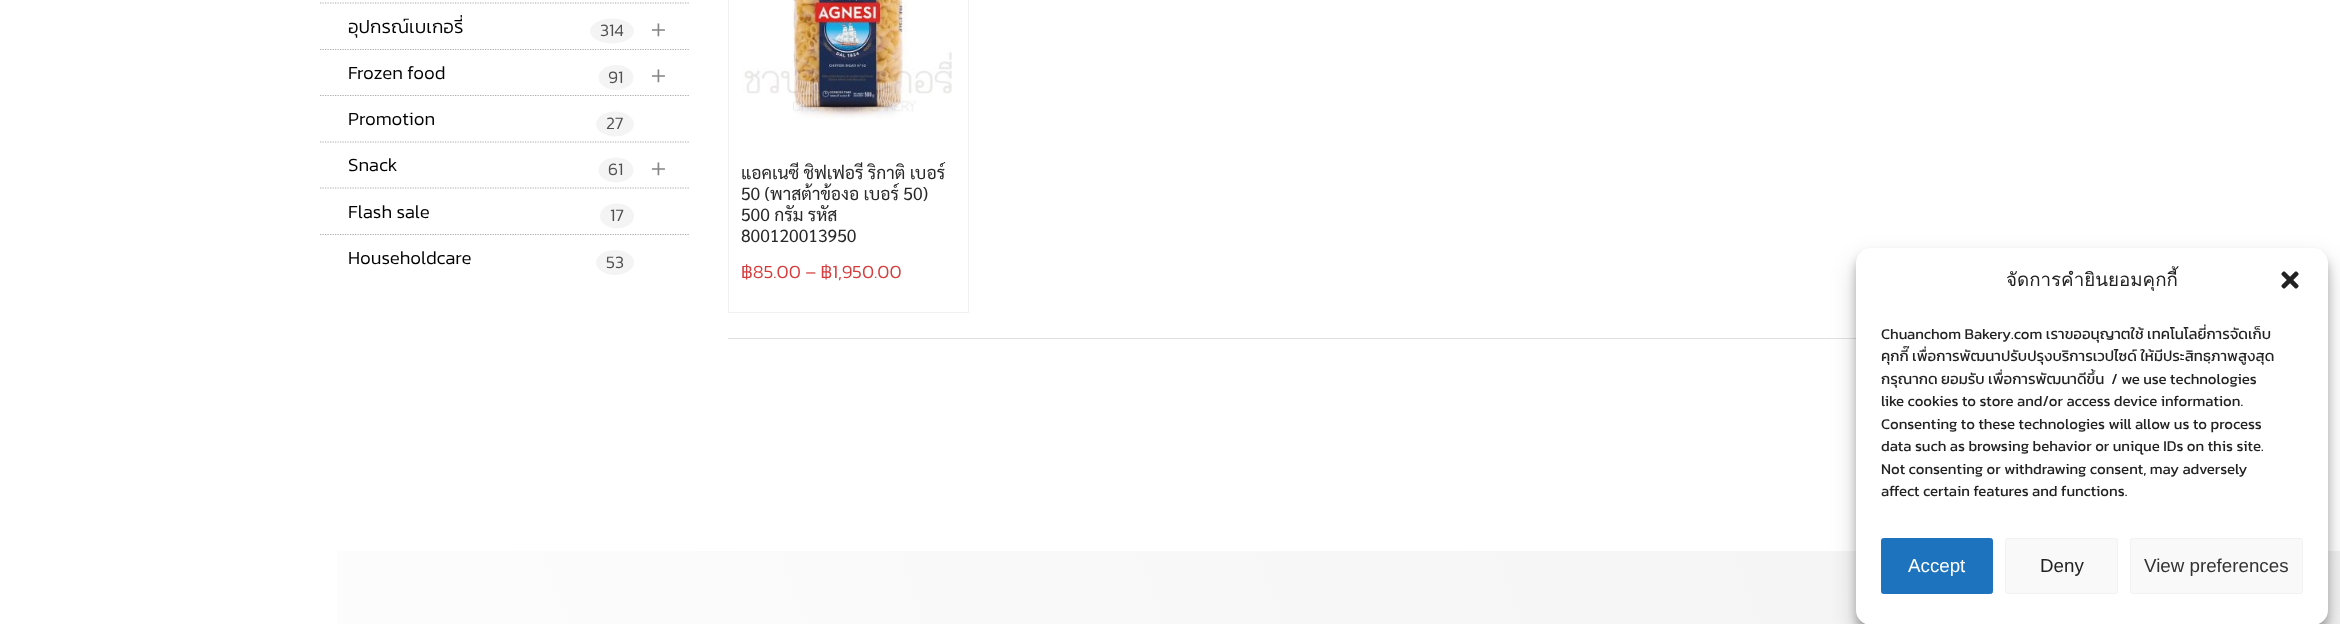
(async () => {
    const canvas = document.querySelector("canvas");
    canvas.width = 2340;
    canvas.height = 624;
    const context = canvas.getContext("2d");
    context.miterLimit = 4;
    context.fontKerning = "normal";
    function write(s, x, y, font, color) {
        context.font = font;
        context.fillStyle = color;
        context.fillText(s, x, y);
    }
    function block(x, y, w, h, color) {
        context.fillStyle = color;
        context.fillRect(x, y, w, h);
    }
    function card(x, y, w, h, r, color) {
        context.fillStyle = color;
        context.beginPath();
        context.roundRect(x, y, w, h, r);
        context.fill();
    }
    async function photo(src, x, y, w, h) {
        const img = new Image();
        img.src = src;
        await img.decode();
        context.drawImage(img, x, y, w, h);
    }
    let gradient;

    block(0, 0, 2340, 624, "rgb(255, 255, 255)");
    context.beginPath();
    context.moveTo(320, 3);
    context.lineTo(690, 3);
    context.strokeStyle = "rgb(172, 172, 172)";
    context.lineWidth = 1.2;
    context.setLineDash([1.25, 1.25]);
    context.stroke();
    context.beginPath();
    context.moveTo(320, 49.5);
    context.lineTo(690, 49.5);
    context.stroke();
    write("อุปกรณ์เบเกอรี่", 348, 33, "300 18.75px Kanit", "rgb(0, 0, 0)");
    context.fillStyle = "rgb(244, 244, 244)";
    context.beginPath();
    context.ellipse(612, 31, 22, 12.5, 0, 0, Math.PI * 2);
    context.fill();
    write("314", 600, 36, "300 17.5px Kanit", "rgb(80, 80, 80)");
    write("+", 650, 39, "200 35px Kanit", "rgb(134, 134, 134)");
    block(320, 50, 369, 1, "rgb(255, 255, 255)");
    context.beginPath();
    context.moveTo(320, 95.5);
    context.lineTo(690, 95.5);
    context.stroke();
    write("Frozen food", 348, 79, "300 18.75px Kanit", "rgb(0, 0, 0)");
    context.fillStyle = "rgb(244, 244, 244)";
    context.beginPath();
    context.ellipse(616, 77.5, 17.5, 12.5, 0, 0, Math.PI * 2);
    context.fill();
    write("91", 608, 83, "300 17.5px Kanit", "rgb(80, 80, 80)");
    write("+", 650, 85, "200 35px Kanit", "rgb(134, 134, 134)");
    block(320, 96, 369, 1, "rgb(255, 255, 255)");
    context.beginPath();
    context.moveTo(320, 142);
    context.lineTo(690, 142);
    context.stroke();
    write("Promotion", 348, 125, "300 18.75px Kanit", "rgb(0, 0, 0)");
    context.fillStyle = "rgb(244, 244, 244)";
    context.beginPath();
    context.ellipse(615, 124, 19, 12.5, 0, 0, Math.PI * 2);
    context.fill();
    write("27", 606, 129, "300 17.5px Kanit", "rgb(80, 80, 80)");
    context.beginPath();
    context.moveTo(320, 188);
    context.lineTo(690, 188);
    context.stroke();
    write("Snack", 348, 171, "300 18.75px Kanit", "rgb(0, 0, 0)");
    context.fillStyle = "rgb(244, 244, 244)";
    context.beginPath();
    context.ellipse(616, 170, 17.5, 12.5, 0, 0, Math.PI * 2);
    context.fill();
    write("61", 608, 175, "300 17.5px Kanit", "rgb(80, 80, 80)");
    write("+", 650, 178, "200 35px Kanit", "rgb(134, 134, 134)");
    context.beginPath();
    context.moveTo(320, 234.5);
    context.lineTo(690, 234.5);
    context.stroke();
    write("Flash sale", 348, 218, "300 18.75px Kanit", "rgb(0, 0, 0)");
    context.fillStyle = "rgb(244, 244, 244)";
    context.beginPath();
    context.ellipse(617, 216, 17, 12.5, 0, 0, Math.PI * 2);
    context.fill();
    write("17", 610, 221, "300 17.5px Kanit", "rgb(80, 80, 80)");
    block(320, 235, 369, 1, "rgb(255, 255, 255)");
    write("Householdcare", 348, 264, "300 18.75px Kanit", "rgb(0, 0, 0)");
    context.fillStyle = "rgb(244, 244, 244)";
    context.beginPath();
    context.ellipse(615, 262.5, 19, 12.5, 0, 0, Math.PI * 2);
    context.fill();
    write("53", 606, 268, "300 17.5px Kanit", "rgb(80, 80, 80)");
    context.strokeStyle = "rgb(241, 241, 241)";
    context.lineWidth = 1;
    context.setLineDash([]);
    context.strokeRect(728.5, -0.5, 240, 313);
    await photo("media/1.png", 742, 0, 210, 119);
    write("แอคเนซี ชิฟเฟอรี ริกาติ เบอร์", 741, 179, "17.5px Sarabun", "rgb(41, 41, 41)");
    write("50 (พาสต้าข้องอ เบอร์ 50)", 741, 200, "17.5px Sarabun", "rgb(41, 41, 41)");
    write("500 กรัม รหัส", 741, 221, "17.5px Sarabun", "rgb(41, 41, 41)");
    write("800120013950", 741, 242, "17.5px Sarabun", "rgb(41, 41, 41)");
    write("฿85.00 – ฿1,950.00", 741, 278, "300 18.75px Kanit", "rgb(214, 60, 60)");
    block(728, 338, 1128, 1, "rgb(224, 224, 224)");
    gradient = context.createLinearGradient(2265, 345, 75, 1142);
    gradient.addColorStop(0, "rgb(242, 242, 242)");
    gradient.addColorStop(1, "rgb(255, 255, 255)");
    context.fillStyle = gradient;
    context.fillRect(337, 551, 2003, 73);
    context.fillStyle = "rgba(0, 0, 0, 0.23)";
    context.filter = "blur(4px)";
    context.beginPath();
    context.roundRect(1856, 255, 472, 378, 15);
    context.fill();
    context.filter = "none";
    context.fillStyle = "rgba(0, 0, 0, 0.19)";
    context.filter = "blur(12.5px)";
    context.beginPath();
    context.roundRect(1856, 260, 472, 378, 15);
    context.fill();
    context.filter = "none";
    card(1856, 248, 472, 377, 15, "rgb(255, 255, 255)");
    write("จัดการคำยินยอมคุกกี้", 2006, 286, "18.75px Loma", "rgb(34, 34, 34)");
    await photo("media/2.png", 2281, 271, 18, 18);
    write("Chuanchom Bakery.com เราขออนุญาตใช้ เทคโนโลยี่การจัดเก็บ", 1881, 339, "15px Kanit", "rgb(34, 34, 34)");
    context.save();
    context.beginPath();
    context.rect(1881, 323, 422, 186);
    context.clip();
    write("คุกกี๊ เพื่อการพัฒนาปรับปรุงบริการเวปไซด์ ให้มีประสิทธฺภาพสูงสุด", 1881, 361, "15px Kanit", "rgb(34, 34, 34)");
    context.restore();
    write("กรุณากด ยอมรับ เพื่อการพัฒนาดีขึ้น  / we use technologies", 1881, 384, "15px Kanit", "rgb(34, 34, 34)");
    write("like cookies to store and/or access device information.", 1881, 406, "15px Kanit", "rgb(34, 34, 34)");
    write("Consenting to these technologies will allow us to process", 1881, 429, "15px Kanit", "rgb(34, 34, 34)");
    write("data such as browsing behavior or unique IDs on this site.", 1881, 451, "15px Kanit", "rgb(34, 34, 34)");
    write("Not consenting or withdrawing consent, may adversely", 1881, 474, "15px Kanit", "rgb(34, 34, 34)");
    write("affect certain features and functions.", 1881, 496, "15px Kanit", "rgb(34, 34, 34)");
    context.fillStyle = "rgb(30, 115, 190)";
    context.beginPath();
    context.roundRect(1881.5, 538.5, 111, 55, 2);
    context.fill();
    context.strokeStyle = "rgb(30, 115, 190)";
    context.stroke();
    write("Accept", 1908, 572, "18.75px Liberation Sans", "rgb(255, 255, 255)");
    context.fillStyle = "rgb(249, 249, 249)";
    context.beginPath();
    context.roundRect(2005.5, 538.5, 112, 55, 2);
    context.fill();
    context.strokeStyle = "rgb(242, 242, 242)";
    context.stroke();
    write("Deny", 2040, 572, "18.75px Liberation Sans", "rgb(34, 34, 34)");
    context.fillStyle = "rgb(249, 249, 249)";
    context.beginPath();
    context.roundRect(2130.5, 538.5, 172, 55, 2);
    context.fill();
    context.stroke();
    write("View preferences", 2144, 572, "18.75px Liberation Sans", "rgb(51, 51, 51)");
})();
